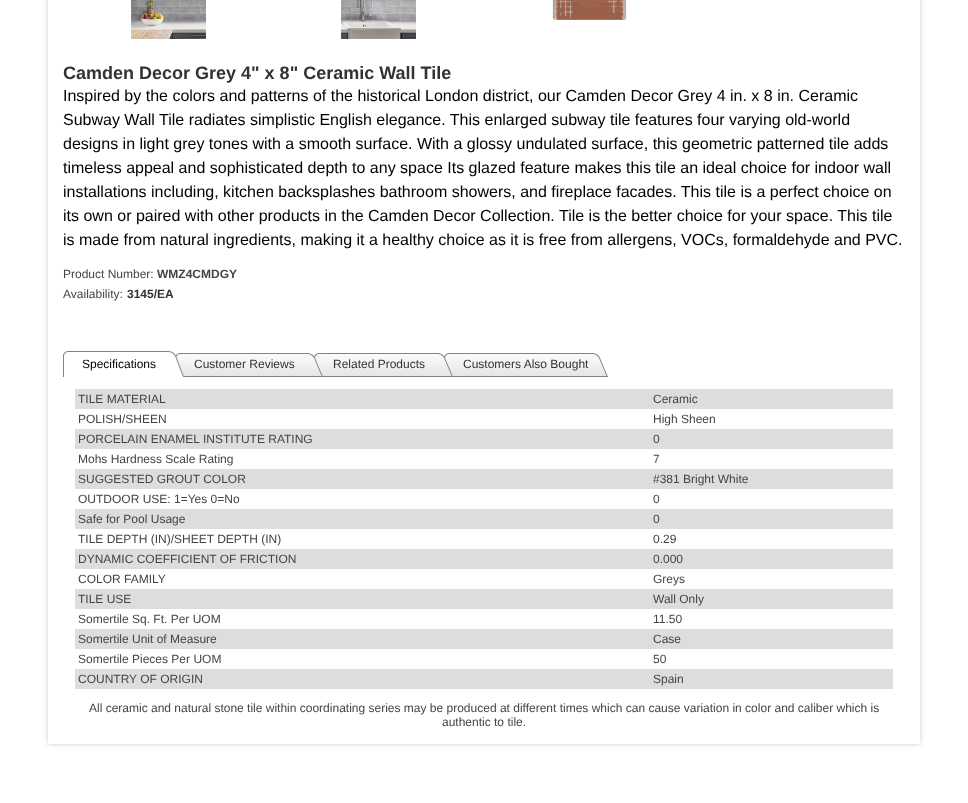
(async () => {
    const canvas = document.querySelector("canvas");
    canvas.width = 968;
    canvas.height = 803;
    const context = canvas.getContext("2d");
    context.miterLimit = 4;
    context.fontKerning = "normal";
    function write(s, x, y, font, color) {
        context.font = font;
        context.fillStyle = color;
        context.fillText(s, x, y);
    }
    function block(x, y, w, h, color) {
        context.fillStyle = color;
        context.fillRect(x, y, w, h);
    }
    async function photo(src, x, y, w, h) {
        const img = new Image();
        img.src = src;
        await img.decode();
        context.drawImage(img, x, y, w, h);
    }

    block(0, 0, 968, 803, "rgb(255, 255, 255)");
    context.save();
    context.beginPath();
    context.moveTo(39, 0);
    context.lineTo(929, 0);
    context.lineTo(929, 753);
    context.lineTo(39, 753);
    context.closePath();
    context.moveTo(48, -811);
    context.lineTo(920, -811);
    context.lineTo(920, 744);
    context.lineTo(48, 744);
    context.closePath();
    context.clip("evenodd");
    context.fillStyle = "rgba(0, 0, 0, 0.2)";
    context.filter = "blur(2.5px)";
    context.beginPath();
    context.rect(48, -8, 872, 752);
    context.fill();
    context.filter = "none";
    context.restore();
    await photo("media/1.png", 131, 0, 75, 39);
    await photo("media/2.png", 341, 0, 75, 39);
    await photo("media/3.png", 552, 0, 75, 20);
    write("Camden Decor Grey 4\" x 8\" Ceramic Wall Tile", 63, 79, "bold 18px Liberation Sans", "rgb(51, 51, 51)");
    write("Inspired by the colors and patterns of the historical London district, our Camden Decor Grey 4 in. x 8 in. Ceramic", 63, 101, "16px Liberation Sans", "rgb(0, 0, 0)");
    write("Subway Wall Tile radiates simplistic English elegance. This enlarged subway tile features four varying old-world", 63, 125, "16px Liberation Sans", "rgb(0, 0, 0)");
    write("designs in light grey tones with a smooth surface. With a glossy undulated surface, this geometric patterned tile adds", 63, 149, "16px Liberation Sans", "rgb(0, 0, 0)");
    write("timeless appeal and sophisticated depth to any space Its glazed feature makes this tile an ideal choice for indoor wall", 63, 173, "16px Liberation Sans", "rgb(0, 0, 0)");
    write("installations including, kitchen backsplashes bathroom showers, and fireplace facades. This tile is a perfect choice on", 63, 197, "16px Liberation Sans", "rgb(0, 0, 0)");
    write("its own or paired with other products in the Camden Decor Collection. Tile is the better choice for your space. This tile", 63, 221, "16px Liberation Sans", "rgb(0, 0, 0)");
    write("is made from natural ingredients, making it a healthy choice as it is free from allergens, VOCs, formaldehyde and PVC.", 63, 245, "16px Liberation Sans", "rgb(0, 0, 0)");
    write("Product Number:", 63, 278, "12px Liberation Sans", "rgb(68, 68, 68)");
    write("WMZ4CMDGY", 157, 278, "bold 12px Liberation Sans", "rgb(68, 68, 68)");
    write("Availability:", 63, 298, "12px Liberation Sans", "rgb(68, 68, 68)");
    write("3145/EA", 127, 298, "bold 12px Liberation Sans", "rgb(51, 51, 51)");
    await photo("media/4.png", 63, 351, 9, 26);
    await photo("media/5.png", 72, 351, 103, 5);
    write("Specifications", 82, 368, "12px Liberation Sans", "rgb(0, 0, 0)");
    await photo("media/6.png", 175, 353, 9, 24);
    await photo("media/7.png", 184, 353, 130, 24);
    write("Customer Reviews", 194, 368, "12px Liberation Sans", "rgb(51, 51, 51)");
    await photo("media/8.png", 314, 353, 9, 24);
    await photo("media/9.png", 323, 353, 121, 24);
    write("Related Products", 333, 368, "12px Liberation Sans", "rgb(51, 51, 51)");
    await photo("media/10.png", 444, 353, 9, 24);
    await photo("media/11.png", 453, 353, 155, 24);
    write("Customers Also Bought", 463, 368, "12px Liberation Sans", "rgb(51, 51, 51)");
    block(75, 389, 818, 20, "rgb(221, 221, 221)");
    write("TILE MATERIAL", 78, 403, "12px Liberation Sans", "rgb(68, 68, 68)");
    write("Ceramic", 653, 403, "12px Liberation Sans", "rgb(68, 68, 68)");
    write("POLISH/SHEEN", 78, 423, "12px Liberation Sans", "rgb(68, 68, 68)");
    write("High Sheen", 653, 423, "12px Liberation Sans", "rgb(68, 68, 68)");
    block(75, 429, 818, 20, "rgb(221, 221, 221)");
    write("PORCELAIN ENAMEL INSTITUTE RATING", 78, 443, "12px Liberation Sans", "rgb(68, 68, 68)");
    write("0", 653, 443, "12px Liberation Sans", "rgb(68, 68, 68)");
    write("Mohs Hardness Scale Rating", 78, 463, "12px Liberation Sans", "rgb(68, 68, 68)");
    write("7", 653, 463, "12px Liberation Sans", "rgb(68, 68, 68)");
    block(75, 469, 818, 20, "rgb(221, 221, 221)");
    write("SUGGESTED GROUT COLOR", 78, 483, "12px Liberation Sans", "rgb(68, 68, 68)");
    write("#381 Bright White", 653, 483, "12px Liberation Sans", "rgb(68, 68, 68)");
    write("OUTDOOR USE: 1=Yes 0=No", 78, 503, "12px Liberation Sans", "rgb(68, 68, 68)");
    write("0", 653, 503, "12px Liberation Sans", "rgb(68, 68, 68)");
    block(75, 509, 818, 20, "rgb(221, 221, 221)");
    write("Safe for Pool Usage", 78, 523, "12px Liberation Sans", "rgb(68, 68, 68)");
    write("0", 653, 523, "12px Liberation Sans", "rgb(68, 68, 68)");
    write("TILE DEPTH (IN)/SHEET DEPTH (IN)", 78, 543, "12px Liberation Sans", "rgb(68, 68, 68)");
    write("0.29", 653, 543, "12px Liberation Sans", "rgb(68, 68, 68)");
    block(75, 549, 818, 20, "rgb(221, 221, 221)");
    write("DYNAMIC COEFFICIENT OF FRICTION", 78, 563, "12px Liberation Sans", "rgb(68, 68, 68)");
    write("0.000", 653, 563, "12px Liberation Sans", "rgb(68, 68, 68)");
    write("COLOR FAMILY", 78, 583, "12px Liberation Sans", "rgb(68, 68, 68)");
    write("Greys", 653, 583, "12px Liberation Sans", "rgb(68, 68, 68)");
    block(75, 589, 818, 20, "rgb(221, 221, 221)");
    write("TILE USE", 78, 603, "12px Liberation Sans", "rgb(68, 68, 68)");
    write("Wall Only", 653, 603, "12px Liberation Sans", "rgb(68, 68, 68)");
    write("Somertile Sq. Ft. Per UOM", 78, 623, "12px Liberation Sans", "rgb(68, 68, 68)");
    write("11.50", 653, 623, "12px Liberation Sans", "rgb(68, 68, 68)");
    block(75, 629, 818, 20, "rgb(221, 221, 221)");
    write("Somertile Unit of Measure", 78, 643, "12px Liberation Sans", "rgb(68, 68, 68)");
    write("Case", 653, 643, "12px Liberation Sans", "rgb(68, 68, 68)");
    write("Somertile Pieces Per UOM", 78, 663, "12px Liberation Sans", "rgb(68, 68, 68)");
    write("50", 653, 663, "12px Liberation Sans", "rgb(68, 68, 68)");
    block(75, 669, 818, 20, "rgb(221, 221, 221)");
    write("COUNTRY OF ORIGIN", 78, 683, "12px Liberation Sans", "rgb(68, 68, 68)");
    write("Spain", 653, 683, "12px Liberation Sans", "rgb(68, 68, 68)");
    write("All ceramic and natural stone tile within coordinating series may be produced at different times which can cause variation in color and caliber which is", 89, 712, "12px Liberation Sans", "rgb(68, 68, 68)");
    write("authentic to tile.", 442, 726, "12px Liberation Sans", "rgb(68, 68, 68)");
})();
